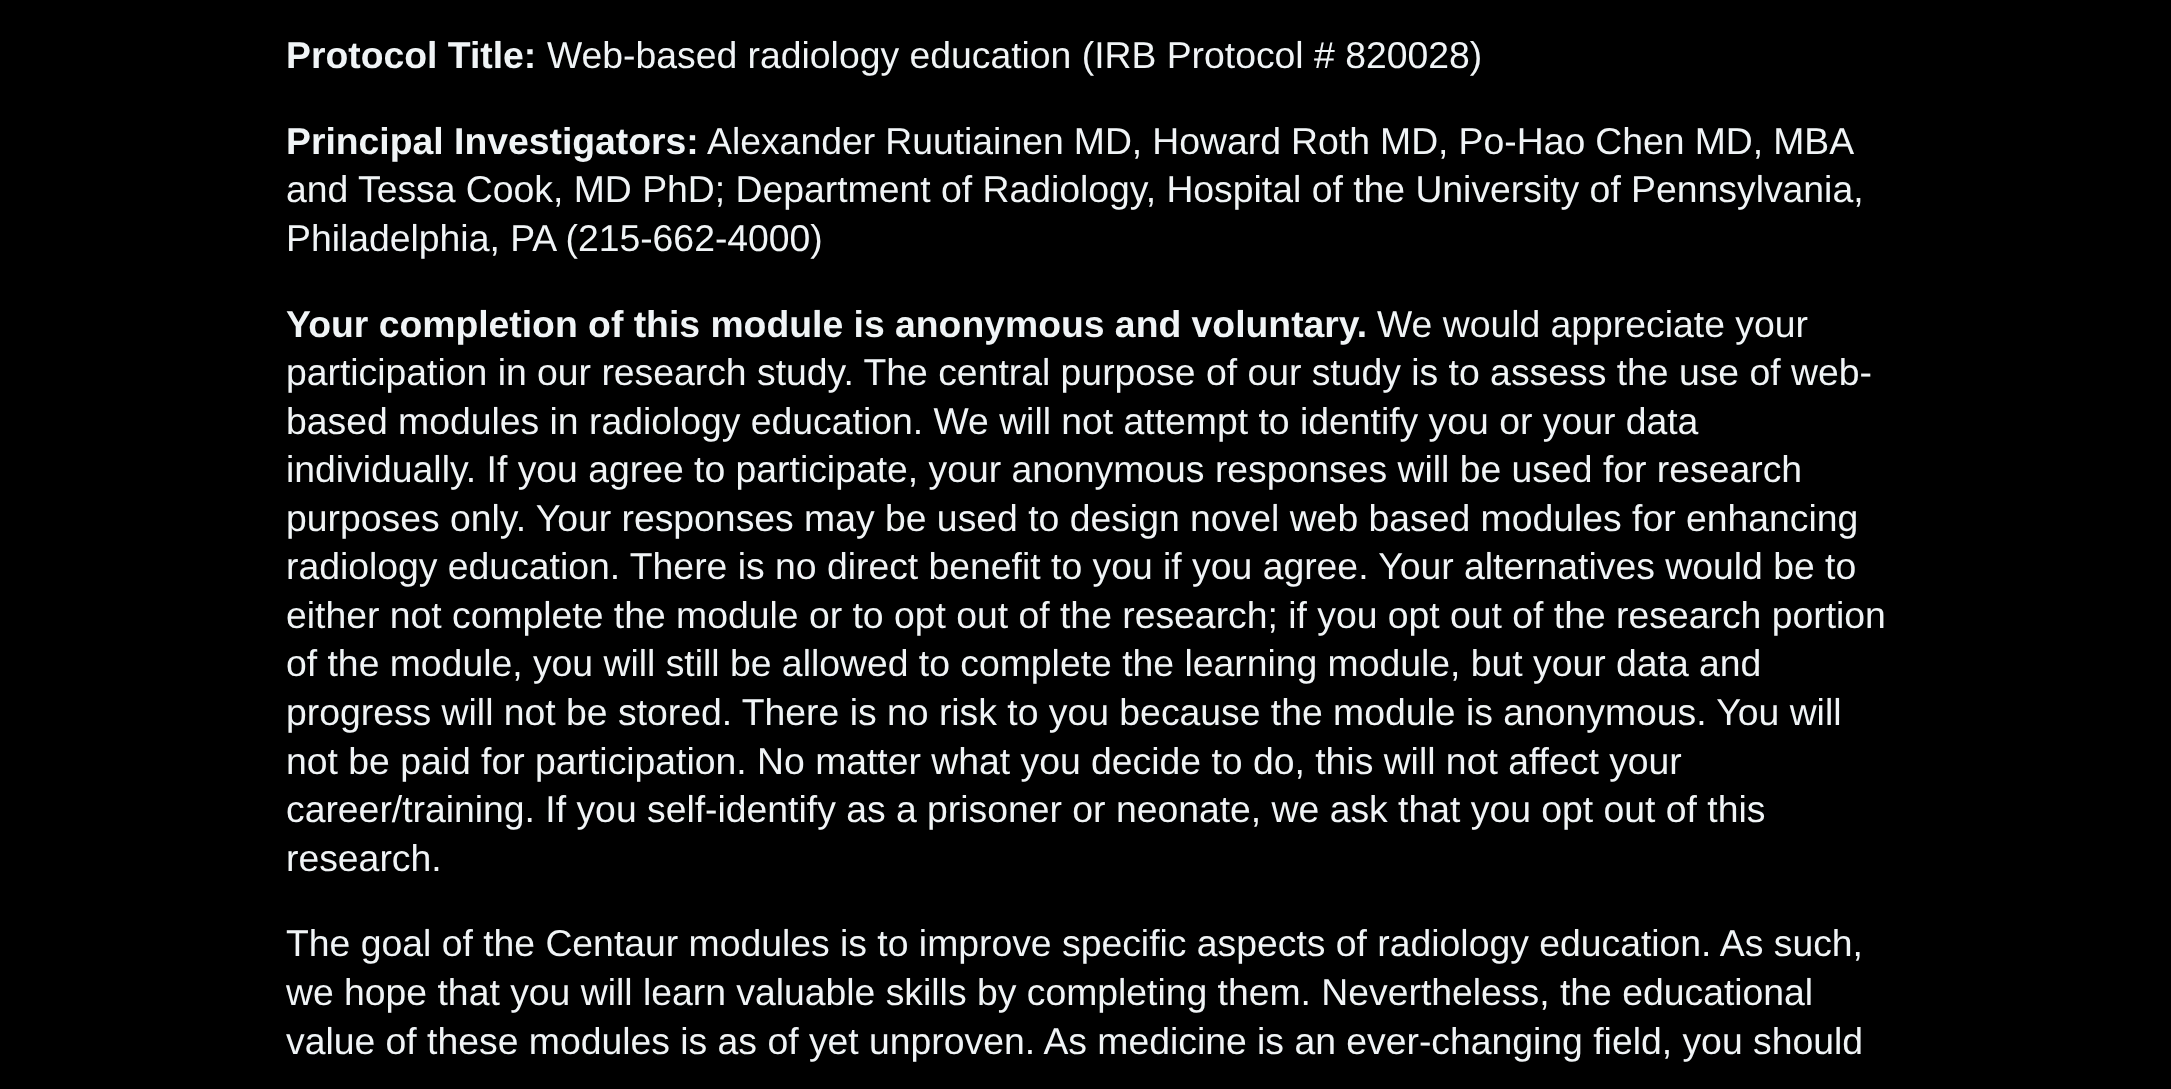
(async () => {
    const canvas = document.querySelector("canvas");
    canvas.width = 2171;
    canvas.height = 1089;
    const context = canvas.getContext("2d");
    context.miterLimit = 4;
    context.fontKerning = "normal";
    function write(s, x, y, font, color) {
        context.font = font;
        context.fillStyle = color;
        context.fillText(s, x, y);
    }
    function block(x, y, w, h, color) {
        context.fillStyle = color;
        context.fillRect(x, y, w, h);
    }

    block(0, 0, 2171, 1089, "rgb(0, 0, 0)");
    write("Protocol Title:", 286, 68, "bold 37.35px Liberation Sans", "rgb(240, 244, 246)");
    write("Web-based radiology education (IRB Protocol # 820028)", 547, 68, "37.35px Liberation Sans", "rgb(240, 244, 246)");
    write("Principal Investigators:", 286, 154, "bold 37.35px Liberation Sans", "rgb(240, 244, 246)");
    context.wordSpacing = "-0.25px";
    write("Alexander Ruutiainen MD, Howard Roth MD, Po-Hao Chen MD, MBA", 707, 154, "37.35px Liberation Sans", "rgb(240, 244, 246)");
    context.wordSpacing = "0px";
    write("and Tessa Cook, MD PhD; Department of Radiology, Hospital of the University of Pennsylvania,", 286, 202, "37.35px Liberation Sans", "rgb(240, 244, 246)");
    write("Philadelphia, PA (215-662-4000)", 286, 251, "37.35px Liberation Sans", "rgb(240, 244, 246)");
    write("Your completion of this module is anonymous and voluntary.", 286, 337, "bold 37.35px Liberation Sans", "rgb(240, 244, 246)");
    write("We would appreciate your", 1377, 337, "37.35px Liberation Sans", "rgb(240, 244, 246)");
    write("participation in our research study. The central purpose of our study is to assess the use of web-", 286, 385, "37.35px Liberation Sans", "rgb(240, 244, 246)");
    write("based modules in radiology education. We will not attempt to identify you or your data", 286, 434, "37.35px Liberation Sans", "rgb(240, 244, 246)");
    write("individually. If you agree to participate, your anonymous responses will be used for research", 286, 482, "37.35px Liberation Sans", "rgb(240, 244, 246)");
    write("purposes only. Your responses may be used to design novel web based modules for enhancing", 286, 531, "37.35px Liberation Sans", "rgb(240, 244, 246)");
    write("radiology education. There is no direct benefit to you if you agree. Your alternatives would be to", 286, 579, "37.35px Liberation Sans", "rgb(240, 244, 246)");
    write("either not complete the module or to opt out of the research; if you opt out of the research portion", 286, 628, "37.35px Liberation Sans", "rgb(240, 244, 246)");
    write("of the module, you will still be allowed to complete the learning module, but your data and", 286, 676, "37.35px Liberation Sans", "rgb(240, 244, 246)");
    write("progress will not be stored. There is no risk to you because the module is anonymous. You will", 286, 725, "37.35px Liberation Sans", "rgb(240, 244, 246)");
    write("not be paid for participation. No matter what you decide to do, this will not affect your", 286, 774, "37.35px Liberation Sans", "rgb(240, 244, 246)");
    write("career/training. If you self-identify as a prisoner or neonate, we ask that you opt out of this", 286, 822, "37.35px Liberation Sans", "rgb(240, 244, 246)");
    write("research.", 286, 871, "37.35px Liberation Sans", "rgb(240, 244, 246)");
    write("The goal of the Centaur modules is to improve specific aspects of radiology education. As such,", 286, 956, "37.35px Liberation Sans", "rgb(240, 244, 246)");
    write("we hope that you will learn valuable skills by completing them. Nevertheless, the educational", 286, 1005, "37.35px Liberation Sans", "rgb(240, 244, 246)");
    write("value of these modules is as of yet unproven. As medicine is an ever-changing field, you should", 286, 1054, "37.35px Liberation Sans", "rgb(240, 244, 246)");
})();
